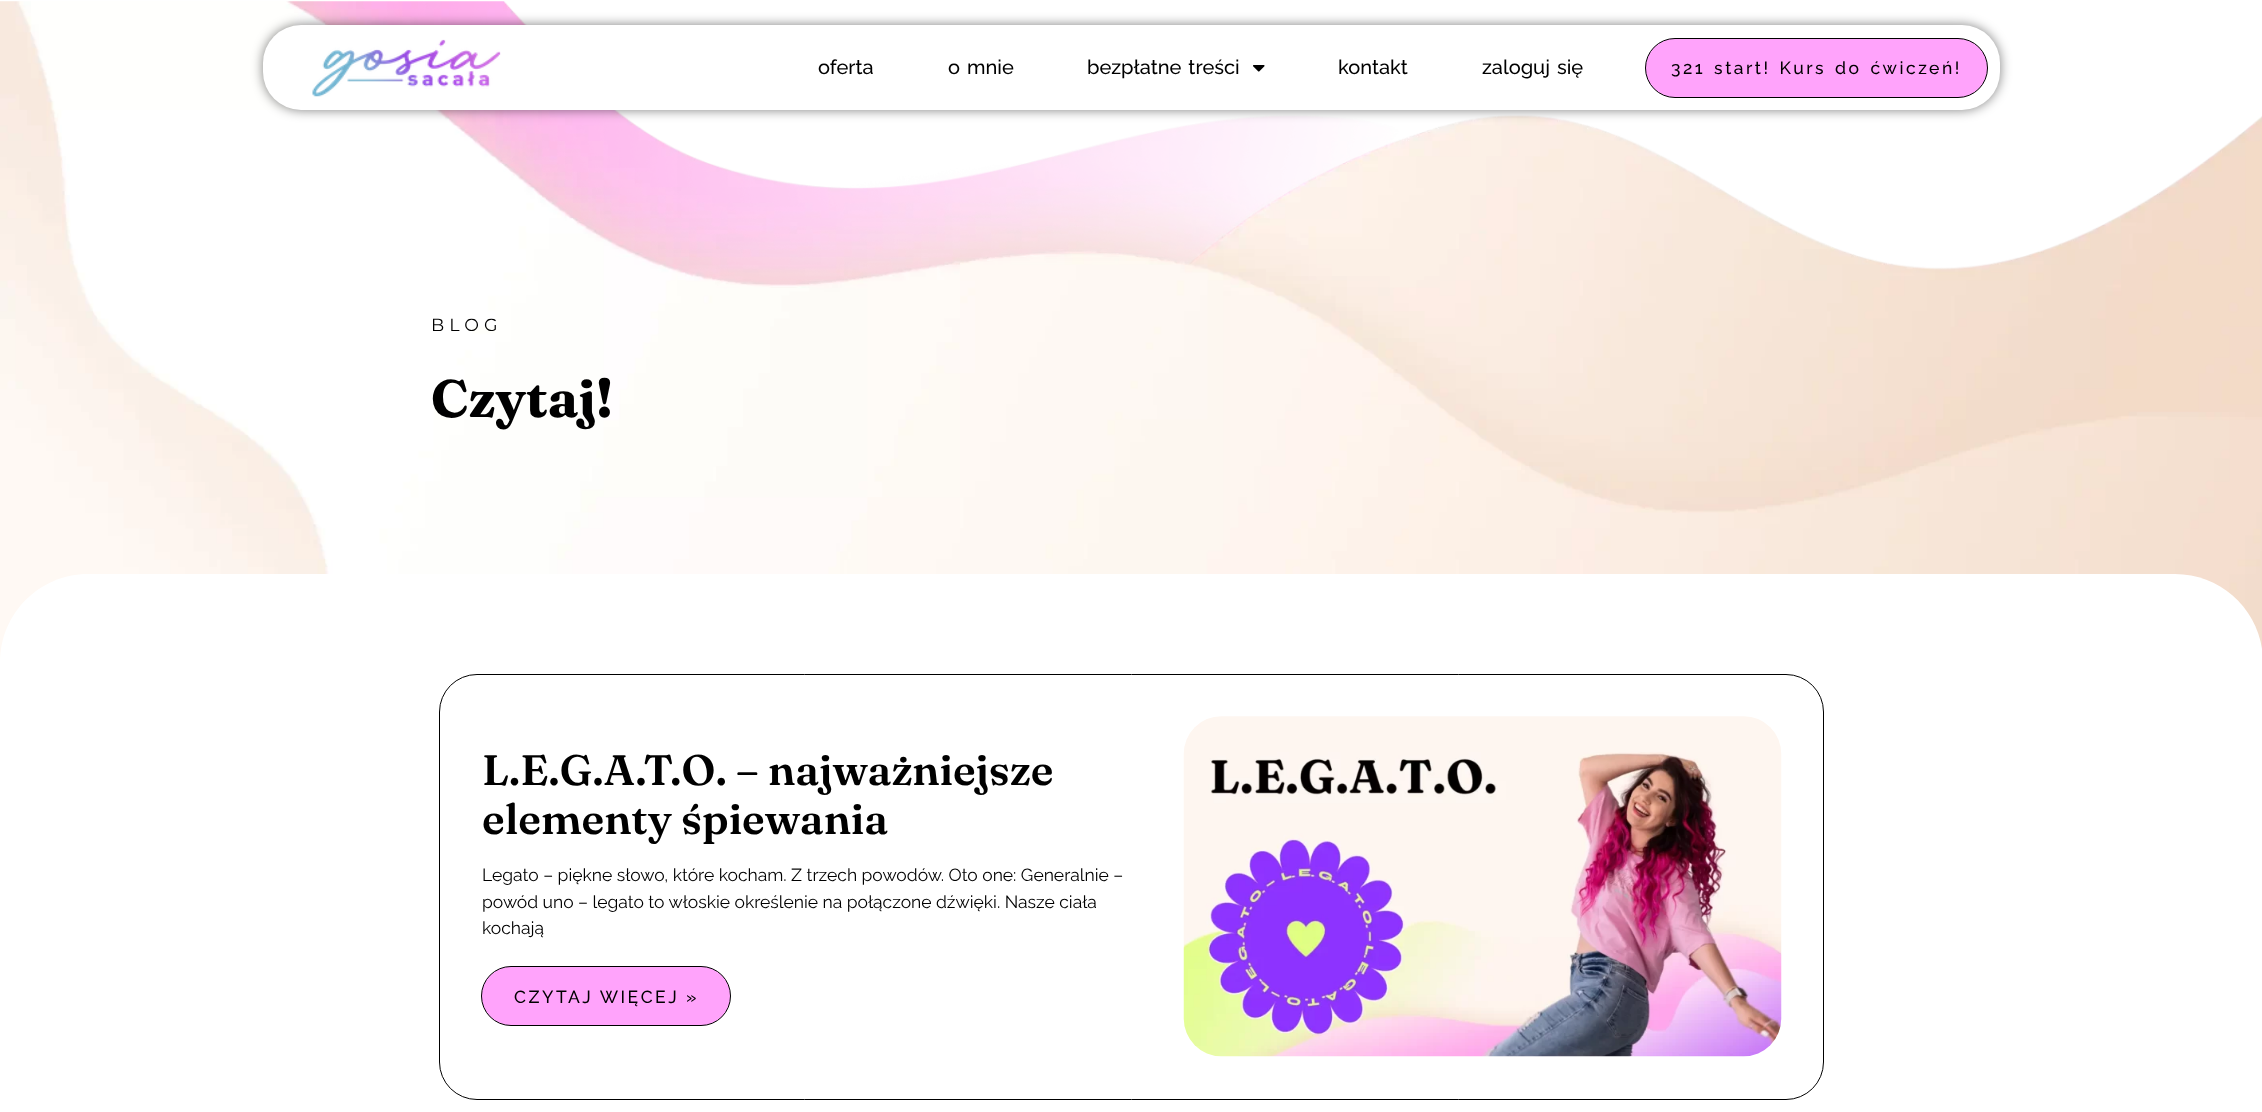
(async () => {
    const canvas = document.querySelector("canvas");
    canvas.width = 2262;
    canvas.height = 1112;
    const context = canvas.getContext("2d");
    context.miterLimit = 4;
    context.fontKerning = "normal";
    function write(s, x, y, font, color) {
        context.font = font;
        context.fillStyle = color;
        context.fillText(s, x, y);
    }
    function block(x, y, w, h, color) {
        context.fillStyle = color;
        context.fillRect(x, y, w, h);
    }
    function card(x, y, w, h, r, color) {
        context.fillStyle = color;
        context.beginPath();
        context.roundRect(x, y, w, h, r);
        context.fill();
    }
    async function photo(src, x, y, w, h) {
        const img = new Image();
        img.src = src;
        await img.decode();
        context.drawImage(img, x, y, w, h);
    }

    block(0, 0, 2262, 1112, "rgb(255, 255, 255)");
    await photo("media/3.png", 0, 1, 2262, 661);
    context.fillStyle = "rgba(0, 0, 0, 0.5)";
    context.filter = "blur(6px)";
    context.beginPath();
    context.roundRect(263, 25, 1737, 85, 38);
    context.fill();
    context.filter = "none";
    card(263, 25, 1737, 85, 38, "rgb(255, 255, 255)");
    await photo("media/1.png", 312, 39, 189, 58);
    write("oferta", 818, 74, "500 20px Raleway", "rgb(0, 0, 0)");
    context.wordSpacing = "2px";
    write("o mnie", 948, 74, "500 20px Raleway", "rgb(0, 0, 0)");
    write("bezpłatne treści", 1087, 74, "500 20px Raleway", "rgb(0, 0, 0)");
    await photo("media/2.png", 1253, 65, 12, 7);
    context.wordSpacing = "0px";
    write("kontakt", 1338, 74, "500 20px Raleway", "rgb(0, 0, 0)");
    context.wordSpacing = "2px";
    write("zaloguj się", 1482, 74, "500 20px Raleway", "rgb(0, 0, 0)");
    context.fillStyle = "rgb(255, 163, 251)";
    context.beginPath();
    context.roundRect(1645.5, 38.5, 342, 59, 29.5);
    context.fill();
    context.strokeStyle = "rgb(0, 0, 0)";
    context.stroke();
    context.letterSpacing = "2.5px";
    write("321 start! Kurs do ćwiczeń!", 1671, 74, "500 17.5px Raleway", "rgb(0, 0, 0)");
    context.letterSpacing = "5px";
    context.wordSpacing = "0px";
    write("BLOG", 431, 331, "17.5px Montserrat", "rgb(0, 0, 0)");
    context.letterSpacing = "0px";
    write("Czytaj!", 431, 417, "bold 52.5px Fraunces", "rgb(0, 0, 0)");
    context.fillStyle = "rgb(255, 255, 255)";
    context.beginPath();
    context.moveTo(88, 574);
    context.lineTo(2175, 574);
    context.bezierCurveTo(2223.5, 574, 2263, 613.5, 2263, 662);
    context.lineTo(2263, 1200);
    context.lineTo(0, 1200);
    context.lineTo(0, 662);
    context.bezierCurveTo(0, 613.5, 39.5, 574, 88, 574);
    context.closePath();
    context.fill();
    context.beginPath();
    context.roundRect(439.5, 674.5, 1384, 425, 37.5);
    context.stroke();
    write("L.E.G.A.T.O. – najważniejsze", 482, 785, "600 42.5px Fraunces", "rgb(0, 0, 0)");
    write("elementy śpiewania", 482, 834, "600 42.5px Fraunces", "rgb(0, 0, 0)");
    write("Legato – piękne słowo, które kocham. Z trzech powodów. Oto one: Generalnie –", 482, 881, "17.5px Raleway", "rgb(0, 0, 0)");
    write("powód uno – legato to włoskie określenie na połączone dźwięki. Nasze ciała", 482, 908, "17.5px Raleway", "rgb(0, 0, 0)");
    write("kochają", 482, 934, "17.5px Raleway", "rgb(0, 0, 0)");
    context.fillStyle = "rgb(255, 163, 251)";
    context.beginPath();
    context.roundRect(481.5, 966.5, 249, 59, 29.5);
    context.fill();
    context.stroke();
    context.letterSpacing = "2.5px";
    write("CZYTAJ WIĘCEJ »", 514, 1003, "500 17.5px Raleway", "rgb(0, 0, 0)");
    await photo("media/4.png", 1183, 716, 599, 341);
})();
